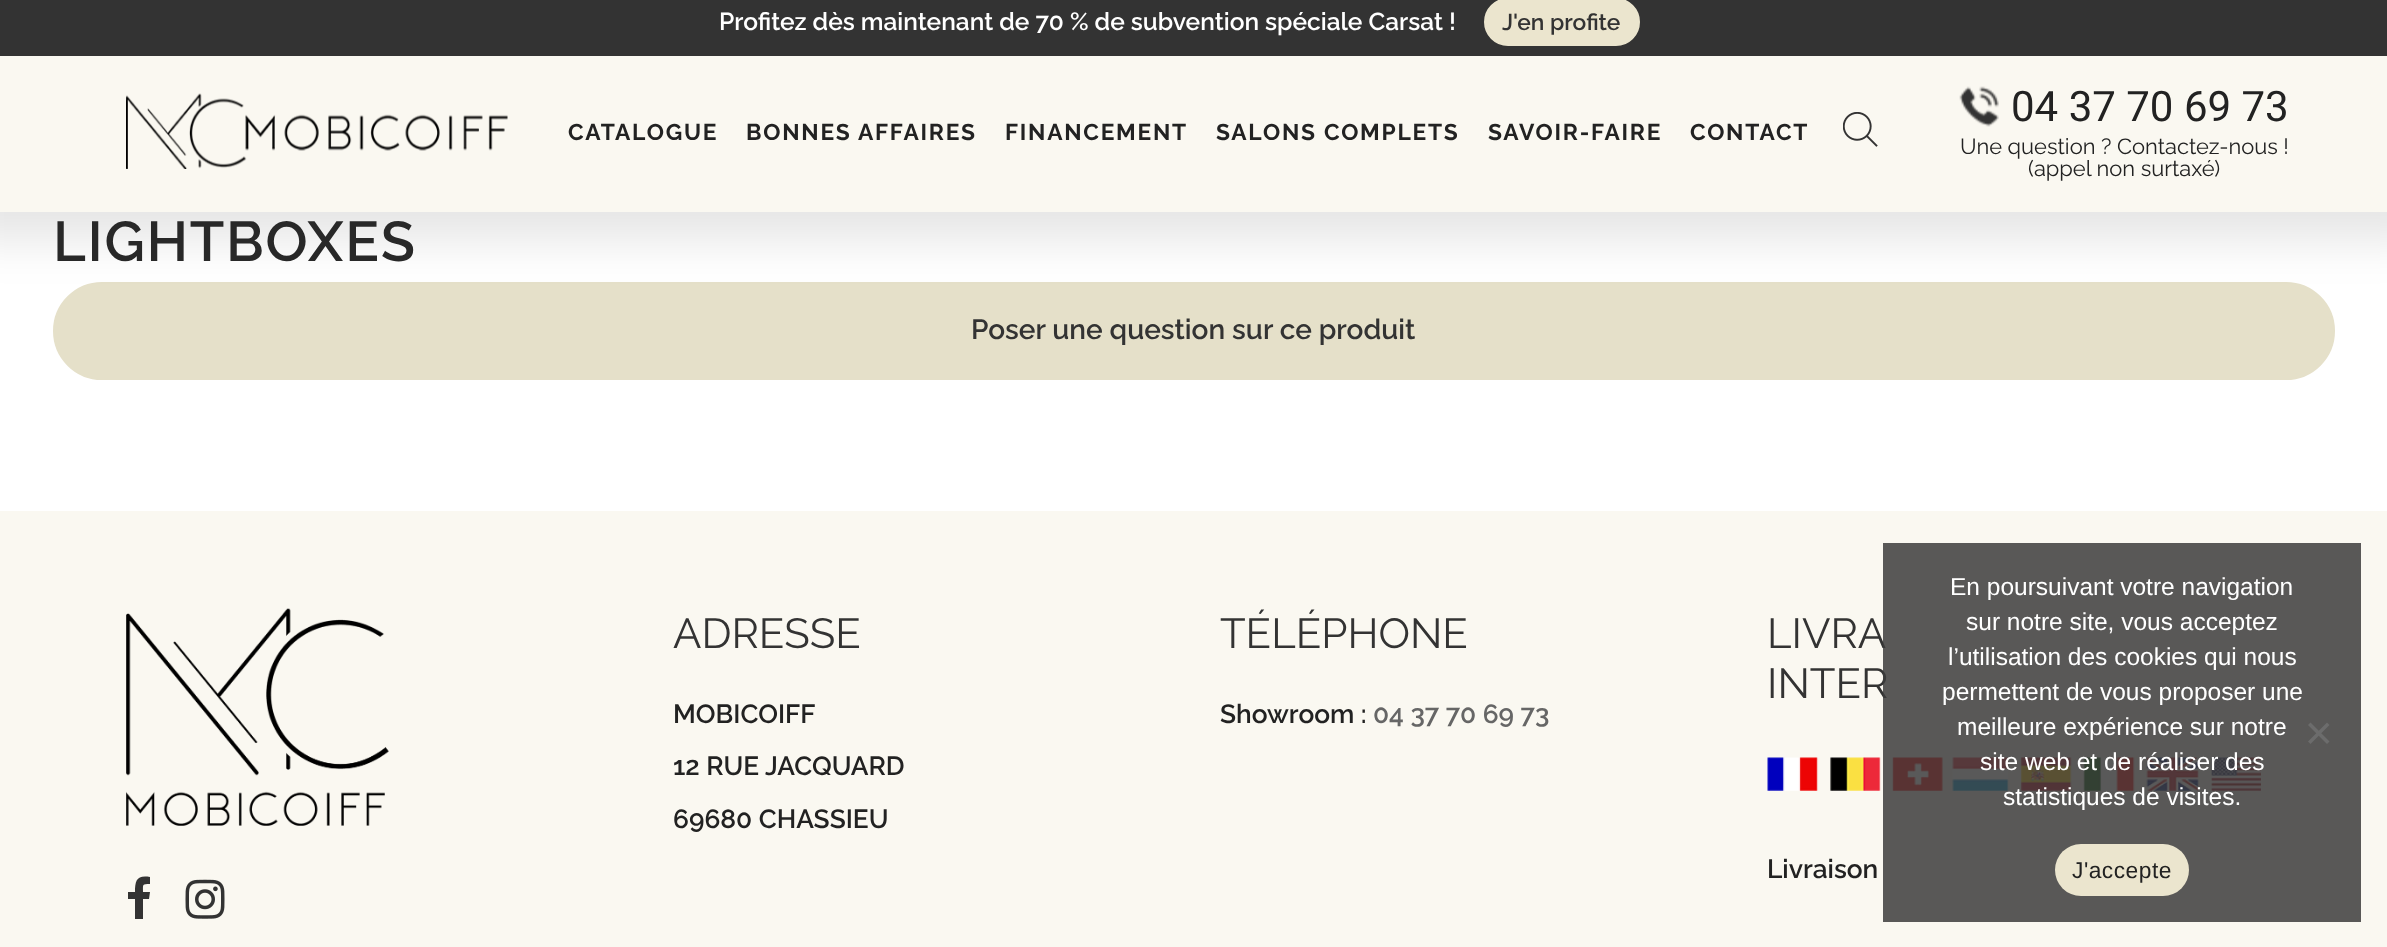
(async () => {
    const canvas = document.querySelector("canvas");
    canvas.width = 2387;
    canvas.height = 947;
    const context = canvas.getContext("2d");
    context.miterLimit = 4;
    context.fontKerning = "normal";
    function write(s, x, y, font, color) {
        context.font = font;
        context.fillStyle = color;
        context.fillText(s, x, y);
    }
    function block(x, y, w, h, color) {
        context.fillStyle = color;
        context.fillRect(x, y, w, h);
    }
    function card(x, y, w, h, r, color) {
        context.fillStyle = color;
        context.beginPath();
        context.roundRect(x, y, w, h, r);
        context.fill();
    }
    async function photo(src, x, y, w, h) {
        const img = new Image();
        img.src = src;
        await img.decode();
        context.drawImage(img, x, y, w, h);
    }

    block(0, 0, 2387, 947, "rgb(255, 255, 255)");
    context.fillStyle = "rgb(229, 224, 201)";
    context.beginPath();
    context.roundRect(55.5, 284.5, 2277, 93, 46.5);
    context.fill();
    context.strokeStyle = "rgb(229, 224, 201)";
    context.lineWidth = 5;
    context.stroke();
    context.fillStyle = "rgba(0, 0, 0, 0.1)";
    context.filter = "blur(23px)";
    context.beginPath();
    context.rect(-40, 7, 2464, 233);
    context.fill();
    context.filter = "none";
    block(0, 0, 2387, 56, "rgb(51, 51, 51)");
    write("Profitez dès maintenant de 70 % de subvention spéciale Carsat !", 719, 30, "600 24.5px Raleway", "rgb(255, 255, 255)");
    context.fillStyle = "rgb(235, 229, 206)";
    context.beginPath();
    context.roundRect(1485, -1, 154, 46, 23);
    context.fill();
    context.strokeStyle = "rgb(235, 229, 206)";
    context.lineWidth = 2;
    context.stroke();
    write("J'en profite", 1502, 30, "600 22.75px Raleway", "rgb(51, 51, 51)");
    block(0, 56, 2387, 156, "rgb(250, 248, 241)");
    await photo("media/1.png", 126, 93, 382, 76);
    context.letterSpacing = "1.75px";
    write("CATALOGUE", 568, 140, "bold 22.75px Raleway", "rgb(34, 34, 34)");
    write("BONNES AFFAIRES", 746, 140, "bold 22.75px Raleway", "rgb(34, 34, 34)");
    write("FINANCEMENT", 1005, 140, "bold 22.75px Raleway", "rgb(34, 34, 34)");
    write("SALONS COMPLETS", 1216, 140, "bold 22.75px Raleway", "rgb(34, 34, 34)");
    write("SAVOIR-FAIRE", 1488, 140, "bold 22.75px Raleway", "rgb(34, 34, 34)");
    write("CONTACT", 1690, 140, "bold 22.75px Raleway", "rgb(34, 34, 34)");
    await photo("media/2.png", 1843, 112, 35, 35);
    await photo("media/3.png", 1959, 86, 40, 41);
    context.letterSpacing = "0px";
    write("04 37 70 69 73", 2011, 121, "42px Roboto", "rgb(34, 34, 34)");
    write("Une question ? Contactez-nous !", 1960, 154, "21.9px Raleway", "rgb(34, 34, 34)");
    write("(appel non surtaxé)", 2028, 176, "21.9px Raleway", "rgb(34, 34, 34)");
    context.letterSpacing = "1.75px";
    write("LIGHTBOXES", 53, 261, "600 56px Raleway", "rgb(40, 40, 40)");
    context.letterSpacing = "0px";
    write("Poser une question sur ce produit", 971, 339, "600 28px Raleway", "rgb(51, 51, 51)");
    block(0, 511, 2387, 436, "rgb(250, 248, 241)");
    await photo("media/4.png", 126, 608, 263, 218);
    context.fillStyle = "rgb(51, 51, 51)";
    context.beginPath();
    context.moveTo(128, 899);
    context.lineTo(128, 892);
    context.lineTo(135, 892);
    context.bezierCurveTo(135, 880, 137, 875, 150, 877);
    context.lineTo(150, 884);
    context.bezierCurveTo(142, 884, 143, 884, 143, 892);
    context.lineTo(150, 892);
    context.lineTo(149, 899);
    context.lineTo(143, 899);
    context.lineTo(143, 919);
    context.lineTo(135, 919);
    context.lineTo(135, 899);
    context.closePath();
    context.fill();
    await photo("media/5.png", 185, 879, 40, 40);
    write("ADRESSE", 673, 648, "42px Raleway", "rgb(51, 51, 51)");
    write("MOBICOIFF", 673, 723, "600 26.25px Raleway", "rgb(34, 34, 34)");
    write("12 RUE JACQUARD", 673, 775, "600 26.25px Raleway", "rgb(34, 34, 34)");
    write("69680 CHASSIEU", 673, 828, "600 26.25px Raleway", "rgb(34, 34, 34)");
    write("TÉLÉPHONE", 1220, 648, "42px Raleway", "rgb(51, 51, 51)");
    write("Showroom :", 1220, 723, "600 26.25px Raleway", "rgb(34, 34, 34)");
    write("04 37 70 69 73", 1373, 723, "600 26.25px Raleway", "rgb(102, 102, 102)");
    write("LIVRA", 1767, 648, "42px Raleway", "rgb(51, 51, 51)");
    write("INTER", 1767, 698, "42px Raleway", "rgb(51, 51, 51)");
    await photo("media/6.png", 1767, 757, 494, 34);
    write("Livraison", 1767, 878, "600 26.25px Raleway", "rgb(34, 34, 34)");
    block(1883, 543, 478, 379, "rgba(60, 60, 60, 0.85)");
    write("En poursuivant votre navigation", 1950, 595, "24.5px Liberation Sans", "rgb(255, 255, 255)");
    write("sur notre site, vous acceptez", 1966, 630, "24.5px Liberation Sans", "rgb(255, 255, 255)");
    write("l’utilisation des cookies qui nous", 1948, 665, "24.5px Liberation Sans", "rgb(255, 255, 255)");
    write("permettent de vous proposer une", 1942, 700, "24.5px Liberation Sans", "rgb(255, 255, 255)");
    write("meilleure expérience sur notre", 1957, 735, "24.5px Liberation Sans", "rgb(255, 255, 255)");
    write("site web et de réaliser des", 1980, 770, "24.5px Liberation Sans", "rgb(255, 255, 255)");
    write("statistiques de visites.", 2003, 805, "24.5px Liberation Sans", "rgb(255, 255, 255)");
    context.fillStyle = "rgb(108, 108, 108)";
    context.beginPath();
    context.moveTo(2327, 722.5);
    context.lineTo(2329.5, 725);
    context.lineTo(2310.5, 744);
    context.lineTo(2308, 741.5);
    context.closePath();
    context.fill();
    context.beginPath();
    context.moveTo(2308, 725);
    context.lineTo(2310.5, 722.5);
    context.lineTo(2329.5, 741.5);
    context.lineTo(2327, 744);
    context.closePath();
    context.fill();
    card(2055, 844, 134, 52, 26, "rgb(235, 229, 206)");
    context.letterSpacing = "0.5px";
    write("J'accepte", 2072, 878, "22.75px Liberation Sans", "rgb(34, 34, 34)");
})();
